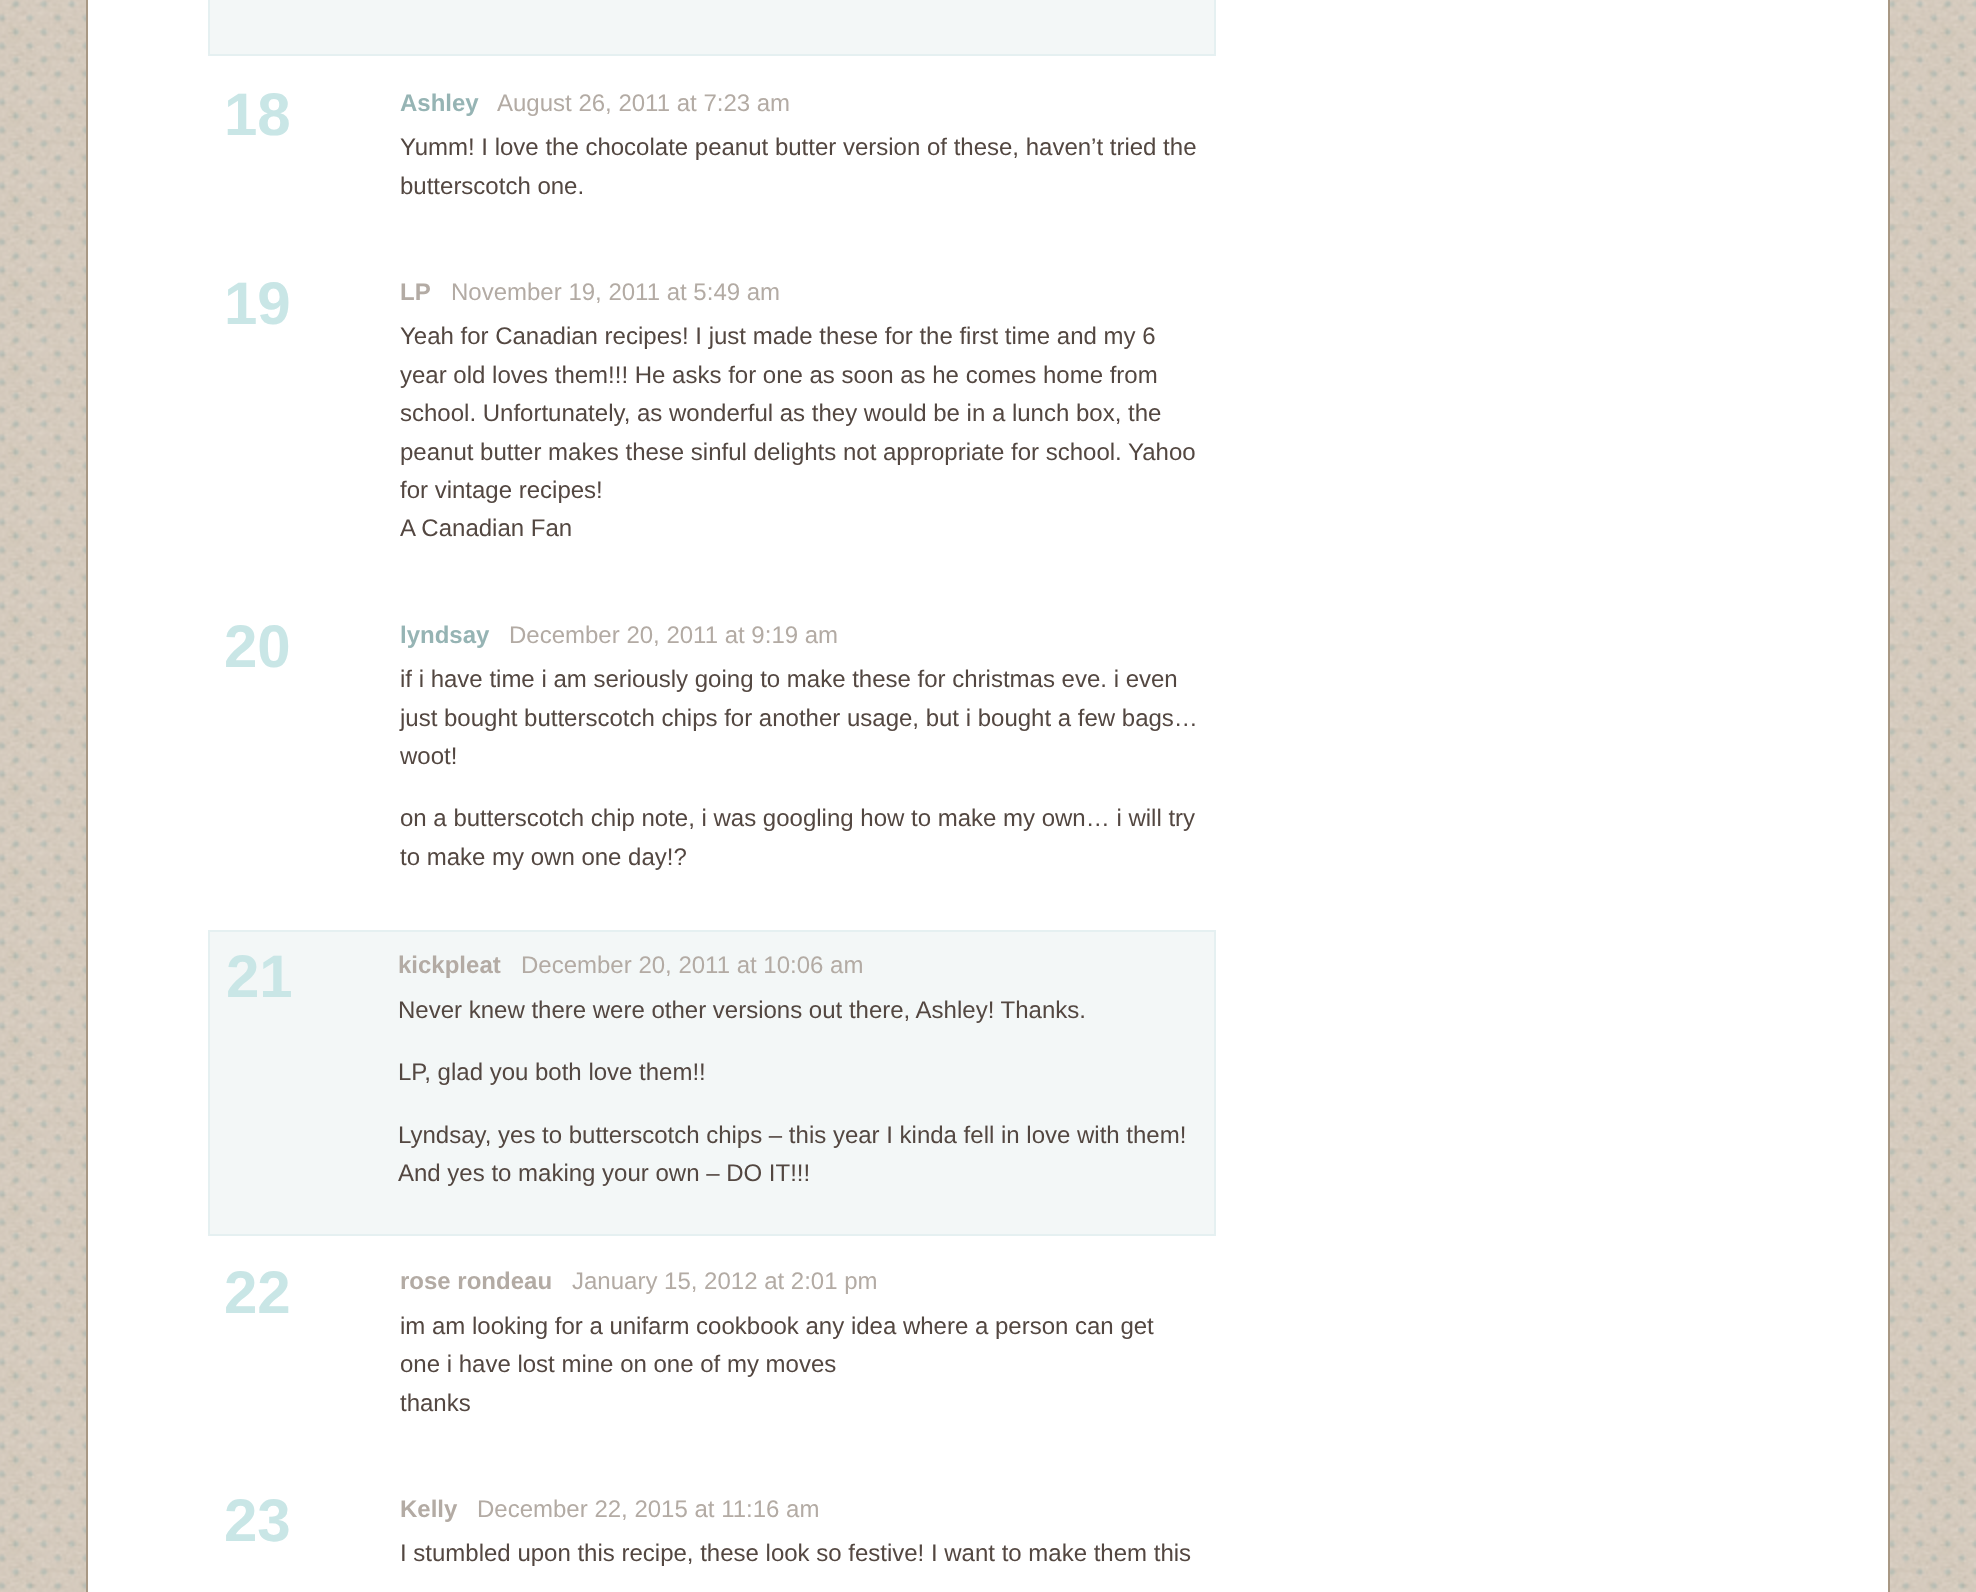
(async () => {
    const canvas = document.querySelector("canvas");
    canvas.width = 1976;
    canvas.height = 1592;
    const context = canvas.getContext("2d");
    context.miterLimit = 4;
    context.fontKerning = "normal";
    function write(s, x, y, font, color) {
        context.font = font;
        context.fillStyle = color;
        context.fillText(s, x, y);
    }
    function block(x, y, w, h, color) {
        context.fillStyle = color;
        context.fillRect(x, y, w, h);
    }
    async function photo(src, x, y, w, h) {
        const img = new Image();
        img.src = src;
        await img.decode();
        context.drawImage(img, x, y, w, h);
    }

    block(0, 0, 1976, 1592, "rgb(255, 255, 255)");
    await photo("media/1.png", 0, 0, 1976, 1592);
    block(88, 0, 1800, 1592, "rgb(255, 255, 255)");
    block(1888, 0, 2, 1592, "rgb(168, 152, 132)");
    block(86, 0, 2, 1592, "rgb(168, 152, 132)");
    context.fillStyle = "rgb(243, 247, 247)";
    context.beginPath();
    context.rect(209, -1, 1006, 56);
    context.fill();
    context.strokeStyle = "rgb(229, 240, 241)";
    context.lineWidth = 2;
    context.stroke();
    write("18", 224, 135, "bold 60px Liberation Sans", "rgb(201, 230, 230)");
    write("Ashley", 400, 111, "bold 24px Liberation Sans", "rgb(150, 180, 180)");
    write("August 26, 2011 at 7:23 am", 497, 111, "24px Liberation Sans", "rgb(179, 171, 164)");
    write("Yumm! I love the chocolate peanut butter version of these, haven’t tried the", 400, 155, "24px Liberation Sans", "rgb(83, 71, 65)");
    write("butterscotch one.", 400, 194, "24px Liberation Sans", "rgb(83, 71, 65)");
    write("19", 224, 324, "bold 60px Liberation Sans", "rgb(201, 230, 230)");
    write("LP", 400, 300, "bold 24px Liberation Sans", "rgb(179, 171, 164)");
    write("November 19, 2011 at 5:49 am", 451, 300, "24px Liberation Sans", "rgb(179, 171, 164)");
    write("Yeah for Canadian recipes! I just made these for the first time and my 6", 400, 344, "24px Liberation Sans", "rgb(83, 71, 65)");
    write("year old loves them!!! He asks for one as soon as he comes home from", 400, 383, "24px Liberation Sans", "rgb(83, 71, 65)");
    write("school. Unfortunately, as wonderful as they would be in a lunch box, the", 400, 421, "24px Liberation Sans", "rgb(83, 71, 65)");
    write("peanut butter makes these sinful delights not appropriate for school. Yahoo", 400, 460, "24px Liberation Sans", "rgb(83, 71, 65)");
    write("for vintage recipes!", 400, 498, "24px Liberation Sans", "rgb(83, 71, 65)");
    write("A Canadian Fan", 400, 536, "24px Liberation Sans", "rgb(83, 71, 65)");
    write("20", 224, 667, "bold 60px Liberation Sans", "rgb(201, 230, 230)");
    write("lyndsay", 400, 643, "bold 24px Liberation Sans", "rgb(150, 180, 180)");
    write("December 20, 2011 at 9:19 am", 509, 643, "24px Liberation Sans", "rgb(179, 171, 164)");
    write("if i have time i am seriously going to make these for christmas eve. i even", 400, 687, "24px Liberation Sans", "rgb(83, 71, 65)");
    write("just bought butterscotch chips for another usage, but i bought a few bags…", 400, 726, "24px Liberation Sans", "rgb(83, 71, 65)");
    write("woot!", 400, 764, "24px Liberation Sans", "rgb(83, 71, 65)");
    write("on a butterscotch chip note, i was googling how to make my own… i will try", 400, 826, "24px Liberation Sans", "rgb(83, 71, 65)");
    write("to make my own one day!?", 400, 865, "24px Liberation Sans", "rgb(83, 71, 65)");
    context.fillStyle = "rgb(243, 247, 247)";
    context.beginPath();
    context.rect(209, 931, 1006, 304);
    context.fill();
    context.stroke();
    write("21", 226, 997, "bold 60px Liberation Sans", "rgb(201, 230, 230)");
    write("kickpleat", 398, 973, "bold 24px Liberation Sans", "rgb(179, 171, 164)");
    write("December 20, 2011 at 10:06 am", 521, 973, "24px Liberation Sans", "rgb(179, 171, 164)");
    write("Never knew there were other versions out there, Ashley! Thanks.", 398, 1018, "24px Liberation Sans", "rgb(83, 71, 65)");
    write("LP, glad you both love them!!", 398, 1080, "24px Liberation Sans", "rgb(83, 71, 65)");
    write("Lyndsay, yes to butterscotch chips – this year I kinda fell in love with them!", 398, 1143, "24px Liberation Sans", "rgb(83, 71, 65)");
    write("And yes to making your own – DO IT!!!", 398, 1181, "24px Liberation Sans", "rgb(83, 71, 65)");
    write("22", 224, 1313, "bold 60px Liberation Sans", "rgb(201, 230, 230)");
    write("rose rondeau", 400, 1289, "bold 24px Liberation Sans", "rgb(179, 171, 164)");
    write("January 15, 2012 at 2:01 pm", 572, 1289, "24px Liberation Sans", "rgb(179, 171, 164)");
    write("im am looking for a unifarm cookbook any idea where a person can get", 400, 1334, "24px Liberation Sans", "rgb(83, 71, 65)");
    write("one i have lost mine on one of my moves", 400, 1372, "24px Liberation Sans", "rgb(83, 71, 65)");
    write("thanks", 400, 1411, "24px Liberation Sans", "rgb(83, 71, 65)");
    write("23", 224, 1541, "bold 60px Liberation Sans", "rgb(201, 230, 230)");
    write("Kelly", 400, 1517, "bold 24px Liberation Sans", "rgb(179, 171, 164)");
    write("December 22, 2015 at 11:16 am", 477, 1517, "24px Liberation Sans", "rgb(179, 171, 164)");
    write("I stumbled upon this recipe, these look so festive! I want to make them this", 400, 1561, "24px Liberation Sans", "rgb(83, 71, 65)");
})();
